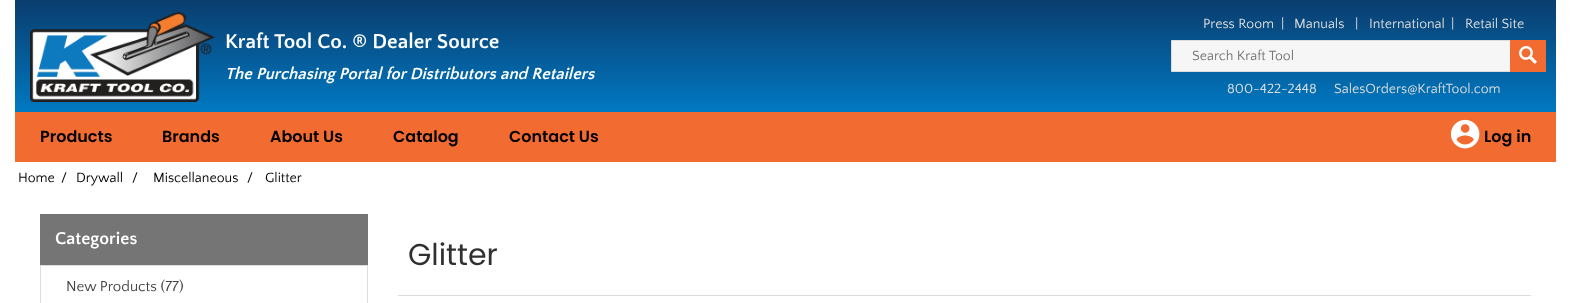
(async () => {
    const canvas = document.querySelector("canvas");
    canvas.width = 1571;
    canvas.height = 303;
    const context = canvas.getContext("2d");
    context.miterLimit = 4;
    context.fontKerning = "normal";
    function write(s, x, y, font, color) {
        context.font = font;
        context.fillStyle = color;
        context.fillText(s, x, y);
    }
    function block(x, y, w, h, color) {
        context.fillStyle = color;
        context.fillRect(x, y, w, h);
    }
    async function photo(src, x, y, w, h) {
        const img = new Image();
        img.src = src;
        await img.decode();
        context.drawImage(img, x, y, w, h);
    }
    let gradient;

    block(0, 0, 1571, 303, "rgb(255, 255, 255)");
    gradient = context.createLinearGradient(786, 0, 786, 112);
    gradient.addColorStop(0, "rgb(10, 61, 110)");
    gradient.addColorStop(1, "rgb(0, 121, 194)");
    context.fillStyle = gradient;
    context.fillRect(15, 0, 1541, 112);
    await photo("media/1.png", 30, 12, 185, 90);
    write("Kraft Tool Co. ® Dealer Source", 225, 48, "bold 21px Quattrocento Sans", "rgb(255, 255, 255)");
    write("The Purchasing Portal for Distributors and Retailers", 225, 79, "italic bold 16.8px Quattrocento Sans", "rgb(255, 255, 255)");
    write("Press Room", 1203, 28, "14px Quattrocento Sans", "rgb(221, 221, 221)");
    write("|", 1281, 28, "14px Quattrocento Sans", "rgb(221, 221, 221)");
    write("Manuals", 1294, 28, "14px Quattrocento Sans", "rgb(221, 221, 221)");
    write("|", 1355, 28, "14px Quattrocento Sans", "rgb(221, 221, 221)");
    write("International", 1369, 28, "14px Quattrocento Sans", "rgb(221, 221, 221)");
    write("|", 1451, 28, "14px Quattrocento Sans", "rgb(221, 221, 221)");
    write("Retail Site", 1465, 28, "14px Quattrocento Sans", "rgb(221, 221, 221)");
    context.fillStyle = "rgb(246, 246, 246)";
    context.beginPath();
    context.rect(1171.5, 40.5, 339, 31);
    context.fill();
    context.strokeStyle = "rgb(221, 221, 221)";
    context.stroke();
    write("Search Kraft Tool", 1192, 60, "14px Quattrocento Sans", "rgb(117, 117, 117)");
    block(1510, 40, 36, 32, "rgb(242, 107, 49)");
    await photo("media/2.png", 1519, 46, 18, 18);
    write("800-422-2448", 1227, 93, "14px Quattrocento Sans", "rgb(221, 221, 221)");
    write("SalesOrders@KraftTool.com", 1334, 93, "14px Quattrocento Sans", "rgb(221, 221, 221)");
    block(15, 112, 1541, 50, "rgb(242, 107, 49)");
    write("Products", 40, 142, "600 16px Poppins", "rgb(0, 0, 0)");
    write("Brands", 162, 142, "600 16px Poppins", "rgb(0, 0, 0)");
    write("About Us", 270, 142, "600 16px Poppins", "rgb(0, 0, 0)");
    write("Catalog", 393, 142, "600 16px Poppins", "rgb(0, 0, 0)");
    write("Contact Us", 509, 142, "600 16px Poppins", "rgb(0, 0, 0)");
    await photo("media/3.png", 1450, 119, 30, 30);
    write("Log in", 1484, 142, "600 16px Poppins", "rgb(0, 0, 0)");
    write("Home", 18, 182, "14px Quattrocento Sans", "rgb(0, 0, 0)");
    write("/", 61, 182, "14px Quattrocento Sans", "rgb(0, 0, 0)");
    write("Drywall", 76, 182, "14px Quattrocento Sans", "rgb(0, 0, 0)");
    write("/", 132, 182, "14px Quattrocento Sans", "rgb(0, 0, 0)");
    write("Miscellaneous", 153, 182, "14px Quattrocento Sans", "rgb(0, 0, 0)");
    write("/", 247, 182, "14px Quattrocento Sans", "rgb(0, 0, 0)");
    write("Glitter", 265, 182, "14px Quattrocento Sans", "rgb(0, 0, 0)");
    block(40, 214, 328, 51, "rgb(117, 117, 117)");
    block(40, 265, 328, 1, "rgb(221, 221, 221)");
    write("Categories", 55, 244, "bold 18px Quattrocento Sans", "rgb(255, 255, 255)");
    block(367, 266, 1, 37, "rgb(221, 221, 221)");
    block(40, 266, 1, 37, "rgb(221, 221, 221)");
    write("New Products (77)", 66, 291, "15px Quattrocento Sans", "rgb(68, 68, 68)");
    block(398, 295, 1133, 1, "rgb(221, 221, 221)");
    write("Glitter", 408, 265, "30px Poppins", "rgb(48, 48, 48)");
})();
